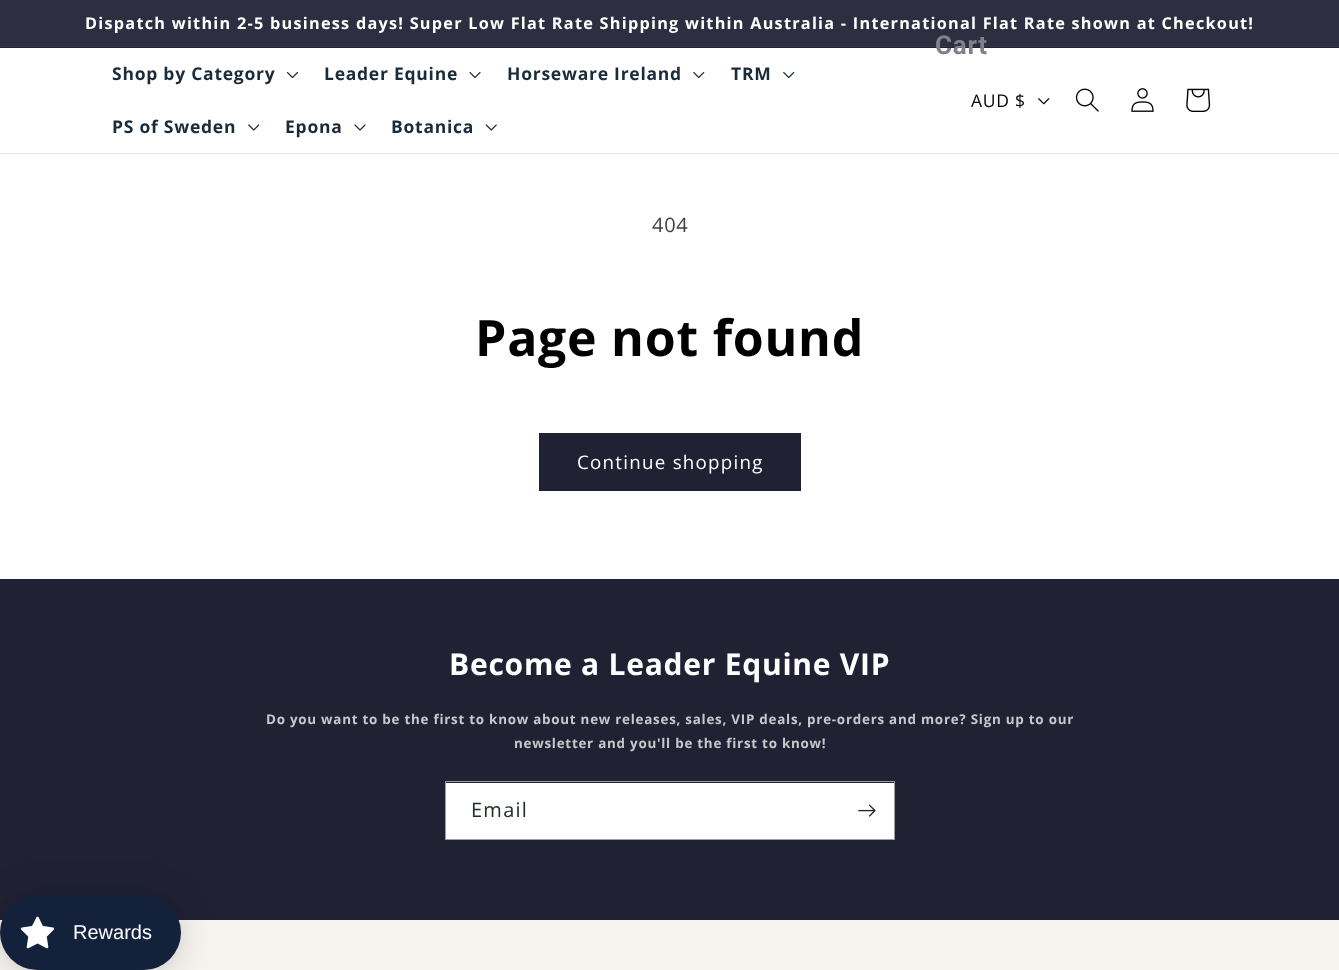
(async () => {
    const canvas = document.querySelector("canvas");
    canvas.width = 1339;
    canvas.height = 970;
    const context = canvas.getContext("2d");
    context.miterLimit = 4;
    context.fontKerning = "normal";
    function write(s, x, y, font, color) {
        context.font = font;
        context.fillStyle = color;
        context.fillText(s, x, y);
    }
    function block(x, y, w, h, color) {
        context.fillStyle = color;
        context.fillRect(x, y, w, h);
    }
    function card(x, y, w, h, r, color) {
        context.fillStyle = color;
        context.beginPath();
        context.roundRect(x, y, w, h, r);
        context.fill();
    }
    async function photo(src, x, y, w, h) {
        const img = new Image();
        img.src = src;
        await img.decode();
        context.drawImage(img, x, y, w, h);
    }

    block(0, 0, 1339, 970, "rgb(255, 255, 255)");
    block(0, 47, 1339, 1, "rgb(32, 34, 52)");
    block(0, 46, 1339, 1, "rgb(50, 52, 68)");
    block(0, 0, 1339, 46, "rgb(45, 47, 64)");
    context.letterSpacing = "1.25px";
    write("Dispatch within 2-5 business days! Super Low Flat Rate Shipping within Australia - International Flat Rate shown at Checkout!", 85, 29, "bold 16.25px Open Sans", "rgb(255, 255, 255)");
    context.letterSpacing = "0.75px";
    write("Cart", 935, 54, "bold 26px Roboto", "rgb(127, 129, 139)");
    block(0, 153, 1339, 1, "rgb(235, 235, 235)");
    write("Shop by Category", 112, 80, "bold 17.5px Open Sans", "rgb(26, 44, 58)");
    await photo("media/1.png", 286, 71, 13, 8);
    write("Leader Equine", 324, 80, "bold 17.5px Open Sans", "rgb(26, 44, 58)");
    await photo("media/2.png", 469, 72, 12, 6);
    write("Horseware Ireland", 507, 80, "bold 17.5px Open Sans", "rgb(26, 44, 58)");
    await photo("media/3.png", 693, 71, 12, 8);
    write("TRM", 731, 80, "bold 17.5px Open Sans", "rgb(26, 44, 58)");
    await photo("media/3.png", 783, 71, 12, 8);
    write("PS of Sweden", 112, 133, "bold 17.5px Open Sans", "rgb(26, 44, 58)");
    await photo("media/4.png", 248, 124, 12, 7);
    write("Epona", 285, 133, "bold 17.5px Open Sans", "rgb(26, 44, 58)");
    await photo("media/5.png", 354, 124, 12, 7);
    write("Botanica", 391, 133, "bold 17.5px Open Sans", "rgb(26, 44, 58)");
    await photo("media/6.png", 485, 124, 12, 7);
    write("AUD $", 971, 107, "17.5px Open Sans", "rgb(0, 0, 0)");
    await photo("media/7.png", 1038, 98, 12, 7);
    await photo("media/8.png", 1075, 88, 24, 24);
    await photo("media/9.png", 1131, 88, 23, 24);
    await photo("media/10.png", 1186, 88, 25, 24);
    write("404", 652, 232, "20px Open Sans", "rgb(64, 64, 64)");
    write("Page not found", 475, 356, "bold 50px Open Sans", "rgb(0, 0, 0)");
    block(539, 433, 262, 58, "rgb(32, 34, 52)");
    context.letterSpacing = "1.25px";
    write("Continue shopping", 577, 469, "18.75px Open Sans", "rgb(255, 255, 255)");
    block(0, 579, 1339, 341, "rgb(32, 34, 52)");
    context.letterSpacing = "0.75px";
    write("Become a Leader Equine VIP", 449, 675, "bold 30px Open Sans", "rgb(255, 255, 255)");
    write("Do you want to be the first to know about new releases, sales, VIP deals, pre-orders and more? Sign up to our", 266, 724, "bold 13.4px Open Sans", "rgb(199, 200, 204)");
    write("newsletter and you'll be the first to know!", 514, 748, "bold 13.4px Open Sans", "rgb(199, 200, 204)");
    block(446, 783, 448, 56, "rgb(255, 255, 255)");
    context.strokeStyle = "rgb(155, 156, 164)";
    context.strokeRect(445.5, 781.5, 449, 58);
    context.letterSpacing = "1.25px";
    write("Email", 471, 817, "20px Open Sans", "rgb(32, 48, 34)");
    await photo("media/11.png", 858, 804, 18, 13);
    block(0, 920, 1339, 50, "rgb(247, 244, 239)");
    context.fillStyle = "rgba(0, 0, 0, 0.15)";
    context.filter = "blur(19px)";
    context.beginPath();
    context.roundRect(0, 898, 181, 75, 37.5);
    context.fill();
    context.filter = "none";
    context.fillStyle = "rgba(0, 0, 0, 0.05)";
    context.filter = "blur(4px)";
    context.beginPath();
    context.roundRect(0, 896, 181, 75, 37.5);
    context.fill();
    context.filter = "none";
    card(0, 895, 181, 75, 37.5, "rgb(20, 33, 59)");
    await photo("media/12.png", 20, 916, 35, 33);
    context.letterSpacing = "0px";
    write("Rewards", 73, 939, "20px Liberation Sans", "rgb(255, 255, 255)");
})();
